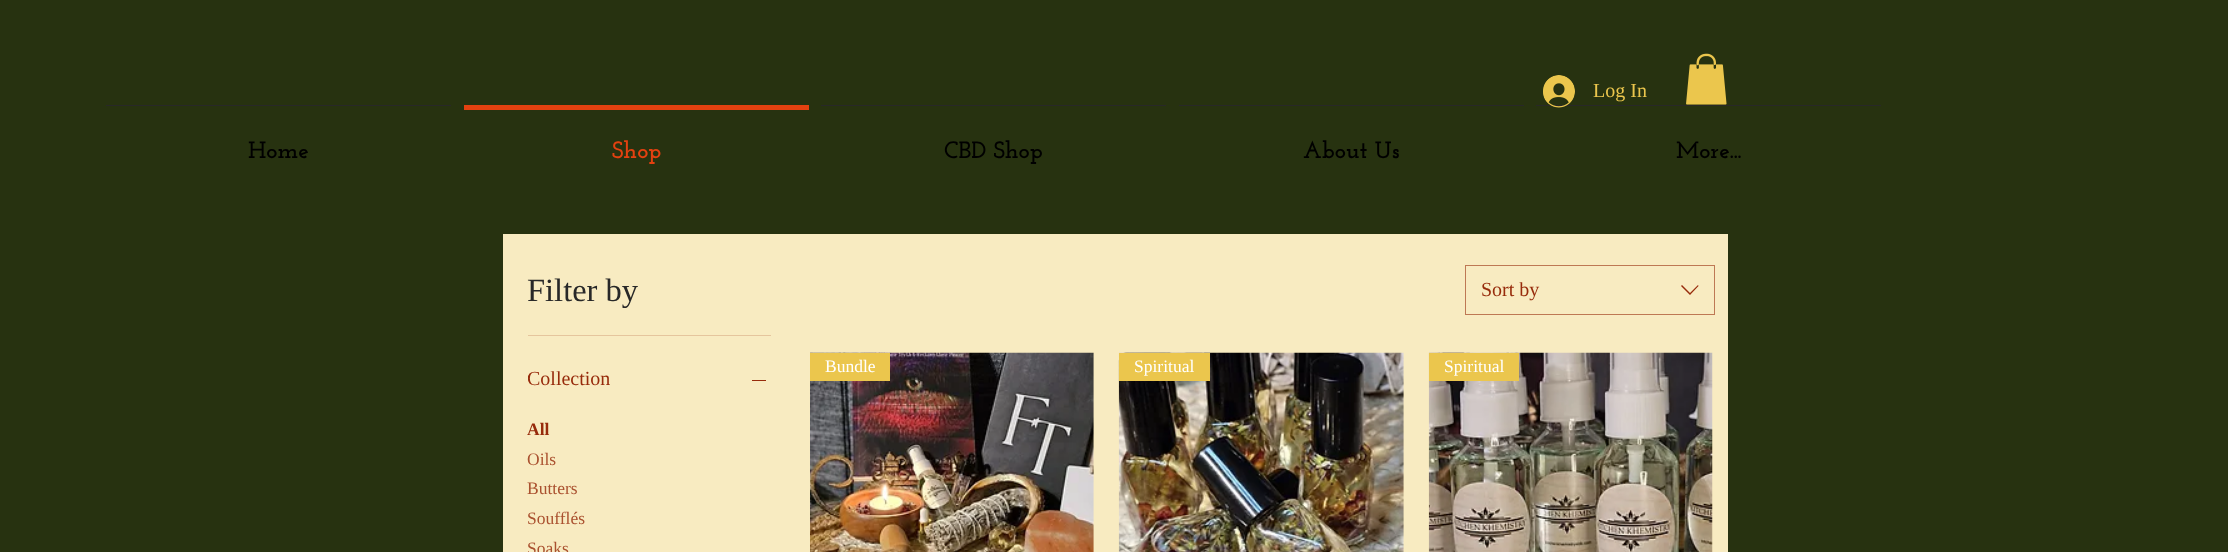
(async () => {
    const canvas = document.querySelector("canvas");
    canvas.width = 2228;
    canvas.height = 552;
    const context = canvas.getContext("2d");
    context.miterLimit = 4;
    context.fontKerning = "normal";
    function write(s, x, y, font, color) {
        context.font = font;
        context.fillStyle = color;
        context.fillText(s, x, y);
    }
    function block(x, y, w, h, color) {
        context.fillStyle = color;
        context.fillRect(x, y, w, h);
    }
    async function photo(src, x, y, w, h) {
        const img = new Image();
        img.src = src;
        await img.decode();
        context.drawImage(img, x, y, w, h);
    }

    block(0, 0, 2228, 552, "rgb(39, 50, 16)");
    block(1536, 105, 345, 1, "rgb(40, 40, 40)");
    await photo("media/1.png", 1543, 75, 32, 33);
    write("Log In", 1593, 97, "20px Liberation Serif", "rgb(235, 198, 77)");
    await photo("media/2.png", 1686, 53, 41, 52);
    block(106, 105, 345, 1, "rgb(40, 40, 40)");
    write("Home", 248, 158, "bold 23.75px Josefin Slab", "rgb(0, 0, 0)");
    block(464, 105, 345, 5, "rgb(227, 65, 16)");
    write("Shop", 612, 158, "bold 23.75px Josefin Slab", "rgb(227, 65, 16)");
    block(821, 105, 345, 1, "rgb(40, 40, 40)");
    write("CBD Shop", 944, 158, "bold 23.75px Josefin Slab", "rgb(0, 0, 0)");
    block(1179, 105, 345, 1, "rgb(40, 40, 40)");
    write("About Us", 1303, 158, "bold 23.75px Josefin Slab", "rgb(0, 0, 0)");
    write("More...", 1676, 158, "bold 23.75px Josefin Slab", "rgb(0, 0, 0)");
    block(503, 234, 1225, 318, "rgb(248, 235, 193)");
    block(528, 335, 243, 1, "rgb(229, 197, 157)");
    write("Filter by", 527, 301, "32.5px Liberation Serif", "rgb(40, 40, 40)");
    context.save();
    context.beginPath();
    context.rect(528, 361, 82, 35);
    context.clip();
    write("Collection", 527, 385, "20px Liberation Serif", "rgb(151, 43, 11)");
    context.restore();
    block(752, 380, 14, 1, "rgb(151, 43, 11)");
    write("All", 527, 435, "bold 17.5px Liberation Serif", "rgb(151, 43, 11)");
    write("Oils", 527, 465, "17.5px Liberation Serif", "rgb(170, 81, 47)");
    write("Butters", 527, 494, "17.5px Liberation Serif", "rgb(170, 81, 47)");
    write("Soufflés", 527, 524, "17.5px Liberation Serif", "rgb(170, 81, 47)");
    write("Soaks", 527, 554, "17.5px Liberation Serif", "rgb(170, 81, 47)");
    context.strokeStyle = "rgb(190, 120, 84)";
    context.strokeRect(1465.5, 265.5, 249, 49);
    write("Sort by", 1481, 296, "20px Liberation Serif", "rgb(151, 43, 11)");
    context.beginPath();
    context.moveTo(1698, 285);
    context.lineTo(1698.5, 286);
    context.lineTo(1690, 295);
    context.lineTo(1681, 286);
    context.lineTo(1682, 285);
    context.lineTo(1690, 293);
    context.closePath();
    context.fill("evenodd");
    await photo("media/3.png", 810, 352, 284, 200);
    block(810, 353, 80, 28, "rgb(235, 198, 77)");
    write("Bundle", 825, 372, "17.5px Liberation Serif", "rgb(255, 255, 255)");
    await photo("media/4.png", 1118, 352, 286, 200);
    block(1119, 353, 91, 28, "rgb(235, 198, 77)");
    write("Spiritual", 1134, 372, "17.5px Liberation Serif", "rgb(255, 255, 255)");
    await photo("media/5.png", 1428, 352, 285, 200);
    block(1429, 353, 90, 28, "rgb(235, 198, 77)");
    write("Spiritual", 1444, 372, "17.5px Liberation Serif", "rgb(255, 255, 255)");
})();
